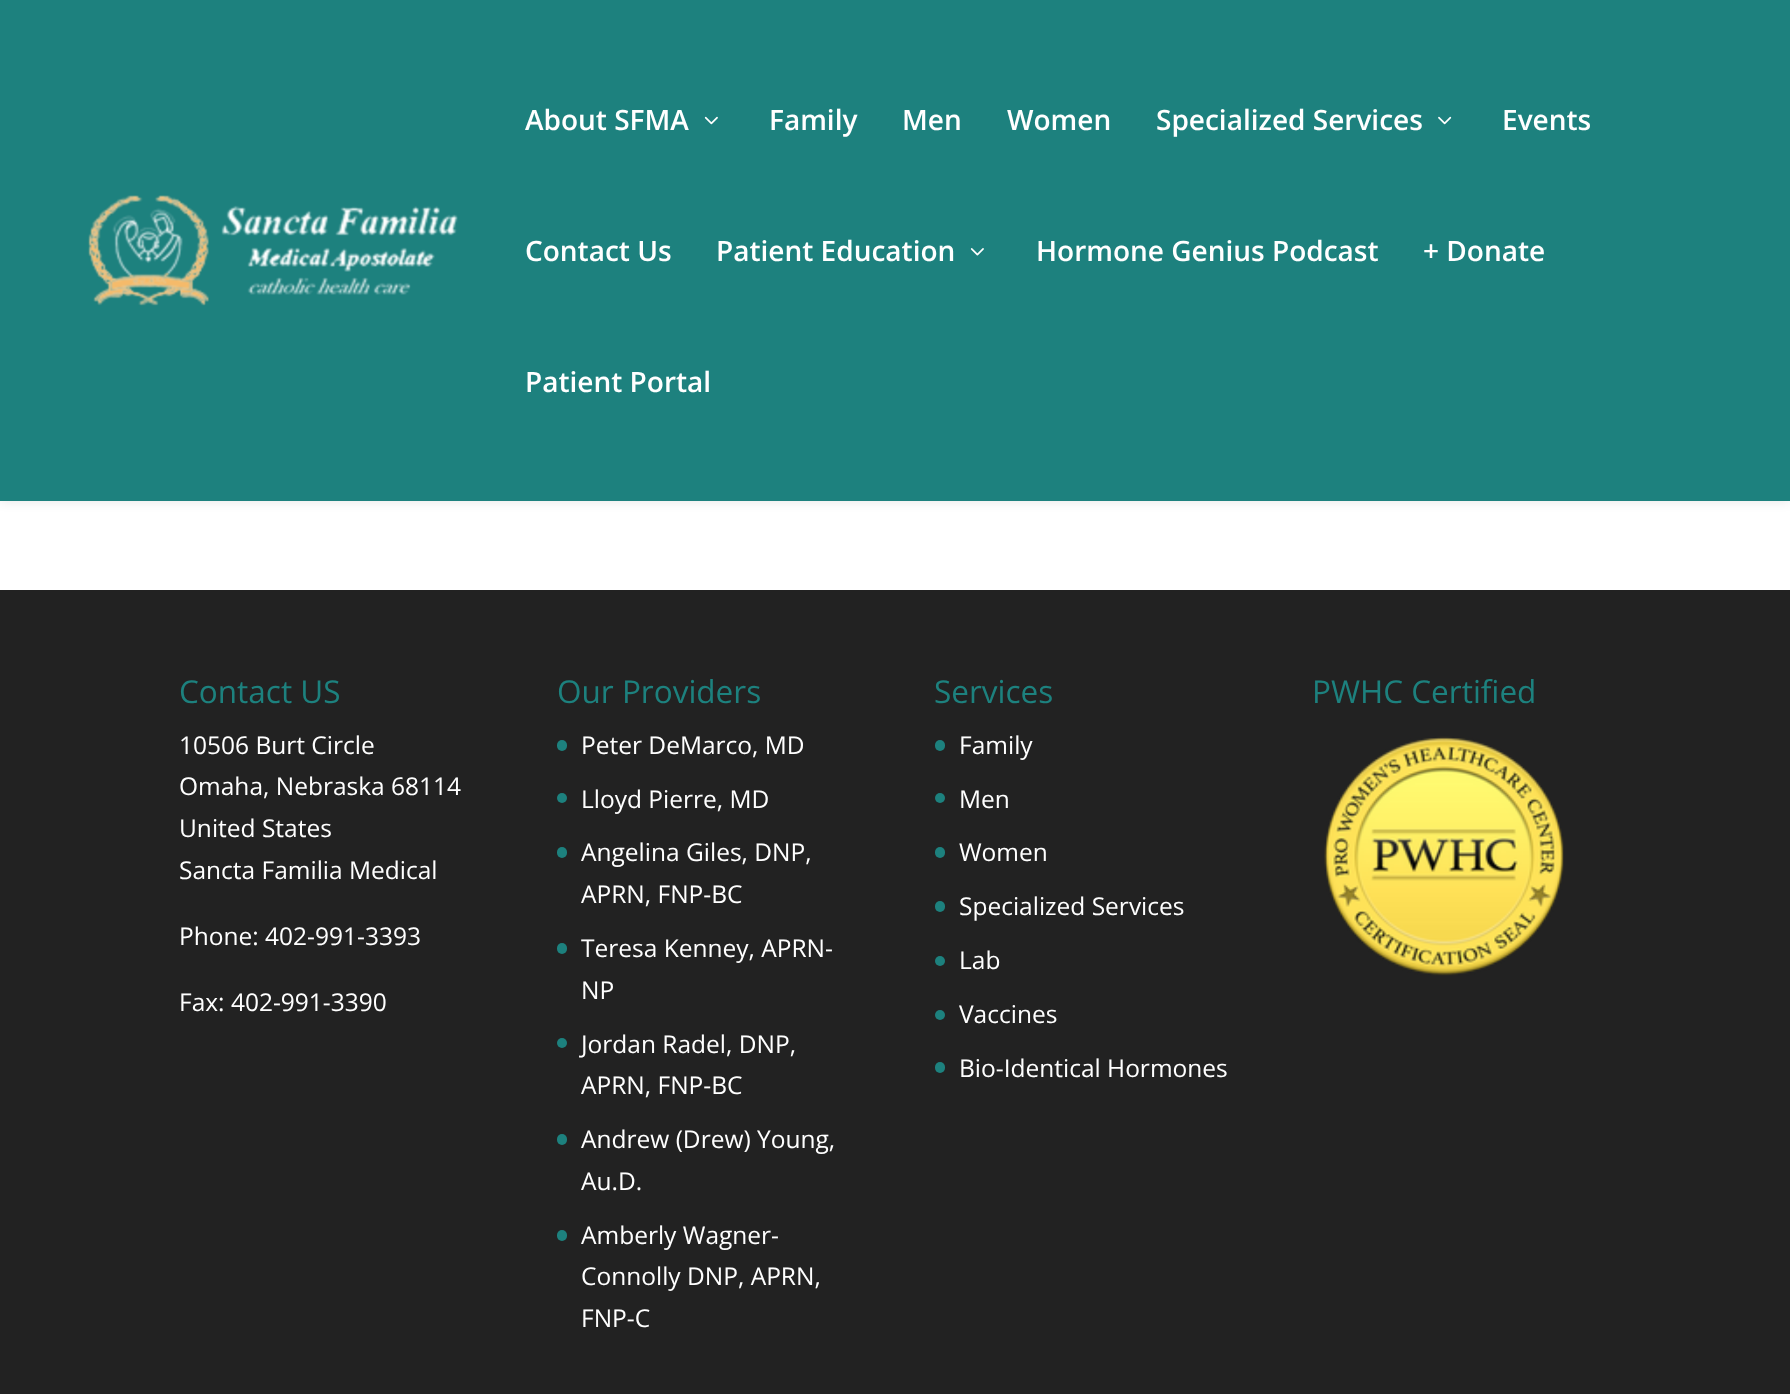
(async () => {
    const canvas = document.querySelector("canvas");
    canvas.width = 1790;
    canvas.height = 1394;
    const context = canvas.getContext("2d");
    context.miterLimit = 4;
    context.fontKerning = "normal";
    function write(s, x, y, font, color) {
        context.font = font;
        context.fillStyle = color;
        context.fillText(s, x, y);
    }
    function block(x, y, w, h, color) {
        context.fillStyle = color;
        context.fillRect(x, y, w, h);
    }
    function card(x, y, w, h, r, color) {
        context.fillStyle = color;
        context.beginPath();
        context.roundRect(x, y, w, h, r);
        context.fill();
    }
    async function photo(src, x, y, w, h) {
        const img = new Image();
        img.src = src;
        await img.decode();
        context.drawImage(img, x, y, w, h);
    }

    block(0, 0, 1790, 1394, "rgb(255, 255, 255)");
    context.fillStyle = "rgba(0, 0, 0, 0.1)";
    context.filter = "blur(6px)";
    context.beginPath();
    context.rect(0, 0, 1790, 501);
    context.fill();
    context.filter = "none";
    block(0, 0, 1790, 501, "rgb(29, 129, 126)");
    await photo("media/1.png", 88, 195, 370, 111);
    write("About SFMA", 525, 130, "600 28px Open Sans", "rgb(255, 255, 255)");
    await photo("media/2.png", 704, 116, 14, 9);
    write("Family", 769, 130, "600 28px Open Sans", "rgb(255, 255, 255)");
    write("Men", 902, 130, "600 28px Open Sans", "rgb(255, 255, 255)");
    write("Women", 1007, 130, "600 28px Open Sans", "rgb(255, 255, 255)");
    write("Specialized Services", 1156, 130, "600 28px Open Sans", "rgb(255, 255, 255)");
    await photo("media/3.png", 1438, 116, 14, 9);
    write("Events", 1502, 130, "600 28px Open Sans", "rgb(255, 255, 255)");
    write("Contact Us", 525, 261, "600 28px Open Sans", "rgb(255, 255, 255)");
    write("Patient Education", 716, 261, "600 28px Open Sans", "rgb(255, 255, 255)");
    await photo("media/4.png", 970, 248, 14, 8);
    write("Hormone Genius Podcast", 1036, 261, "600 28px Open Sans", "rgb(255, 255, 255)");
    write("+ Donate", 1423, 261, "600 28px Open Sans", "rgb(255, 255, 255)");
    write("Patient Portal", 525, 392, "600 28px Open Sans", "rgb(255, 255, 255)");
    block(0, 590, 1790, 804, "rgb(34, 34, 34)");
    write("Contact US", 179, 703, "31.5px Open Sans", "rgb(29, 129, 126)");
    write("10506 Burt Circle", 179, 754, "24.5px Open Sans", "rgb(255, 255, 255)");
    write("Omaha, Nebraska 68114", 179, 795, "24.5px Open Sans", "rgb(255, 255, 255)");
    write("United States", 179, 837, "24.5px Open Sans", "rgb(255, 255, 255)");
    write("Sancta Familia Medical", 179, 879, "24.5px Open Sans", "rgb(255, 255, 255)");
    write("Phone: 402-991-3393", 179, 945, "24.5px Open Sans", "rgb(255, 255, 255)");
    write("Fax: 402-991-3390", 179, 1011, "24.5px Open Sans", "rgb(255, 255, 255)");
    write("Our Providers", 557, 703, "31.5px Open Sans", "rgb(29, 129, 126)");
    card(557, 740, 10, 11, 5, "rgb(29, 129, 126)");
    write("Peter DeMarco, MD", 581, 754, "24.5px Open Sans", "rgb(255, 255, 255)");
    context.fillStyle = "rgb(29, 129, 126)";
    context.beginPath();
    context.arc(562, 798, 5, 0, Math.PI * 2);
    context.fill();
    write("Lloyd Pierre, MD", 581, 808, "24.5px Open Sans", "rgb(255, 255, 255)");
    card(557, 847, 10, 11, 5, "rgb(29, 129, 126)");
    write("Angelina Giles, DNP,", 581, 861, "24.5px Open Sans", "rgb(255, 255, 255)");
    write("APRN, FNP-BC", 581, 903, "24.5px Open Sans", "rgb(255, 255, 255)");
    card(557, 943, 10, 11, 5, "rgb(29, 129, 126)");
    write("Teresa Kenney, APRN-", 581, 957, "24.5px Open Sans", "rgb(255, 255, 255)");
    write("NP", 581, 999, "24.5px Open Sans", "rgb(255, 255, 255)");
    context.fillStyle = "rgb(29, 129, 126)";
    context.beginPath();
    context.arc(562, 1043, 5, 0, Math.PI * 2);
    context.fill();
    write("Jordan Radel, DNP,", 581, 1053, "24.5px Open Sans", "rgb(255, 255, 255)");
    write("APRN, FNP-BC", 581, 1094, "24.5px Open Sans", "rgb(255, 255, 255)");
    card(557, 1134, 10, 11, 5, "rgb(29, 129, 126)");
    write("Andrew (Drew) Young,", 581, 1148, "24.5px Open Sans", "rgb(255, 255, 255)");
    write("Au.D.", 581, 1190, "24.5px Open Sans", "rgb(255, 255, 255)");
    card(557, 1230, 10, 11, 5, "rgb(29, 129, 126)");
    write("Amberly Wagner-", 581, 1244, "24.5px Open Sans", "rgb(255, 255, 255)");
    write("Connolly DNP, APRN,", 581, 1285, "24.5px Open Sans", "rgb(255, 255, 255)");
    write("FNP-C", 581, 1327, "24.5px Open Sans", "rgb(255, 255, 255)");
    write("Services", 934, 703, "31.5px Open Sans", "rgb(29, 129, 126)");
    card(935, 740, 10, 11, 5, "rgb(29, 129, 126)");
    write("Family", 959, 754, "24.5px Open Sans", "rgb(255, 255, 255)");
    context.fillStyle = "rgb(29, 129, 126)";
    context.beginPath();
    context.arc(940, 798, 5, 0, Math.PI * 2);
    context.fill();
    write("Men", 959, 808, "24.5px Open Sans", "rgb(255, 255, 255)");
    card(935, 847, 10, 11, 5, "rgb(29, 129, 126)");
    write("Women", 959, 861, "24.5px Open Sans", "rgb(255, 255, 255)");
    card(935, 901, 10, 11, 5, "rgb(29, 129, 126)");
    write("Specialized Services", 959, 915, "24.5px Open Sans", "rgb(255, 255, 255)");
    context.fillStyle = "rgb(29, 129, 126)";
    context.beginPath();
    context.arc(940, 961, 5, 0, Math.PI * 2);
    context.fill();
    write("Lab", 959, 969, "24.5px Open Sans", "rgb(255, 255, 255)");
    context.fillStyle = "rgb(29, 129, 126)";
    context.beginPath();
    context.arc(940, 1015, 5, 0, Math.PI * 2);
    context.fill();
    write("Vaccines", 959, 1023, "24.5px Open Sans", "rgb(255, 255, 255)");
    card(935, 1062, 10, 11, 5, "rgb(29, 129, 126)");
    write("Bio-Identical Hormones", 959, 1077, "24.5px Open Sans", "rgb(255, 255, 255)");
    write("PWHC Certified", 1312, 703, "31.5px Open Sans", "rgb(29, 129, 126)");
    await photo("media/5.png", 1324, 736, 240, 240);
})();
